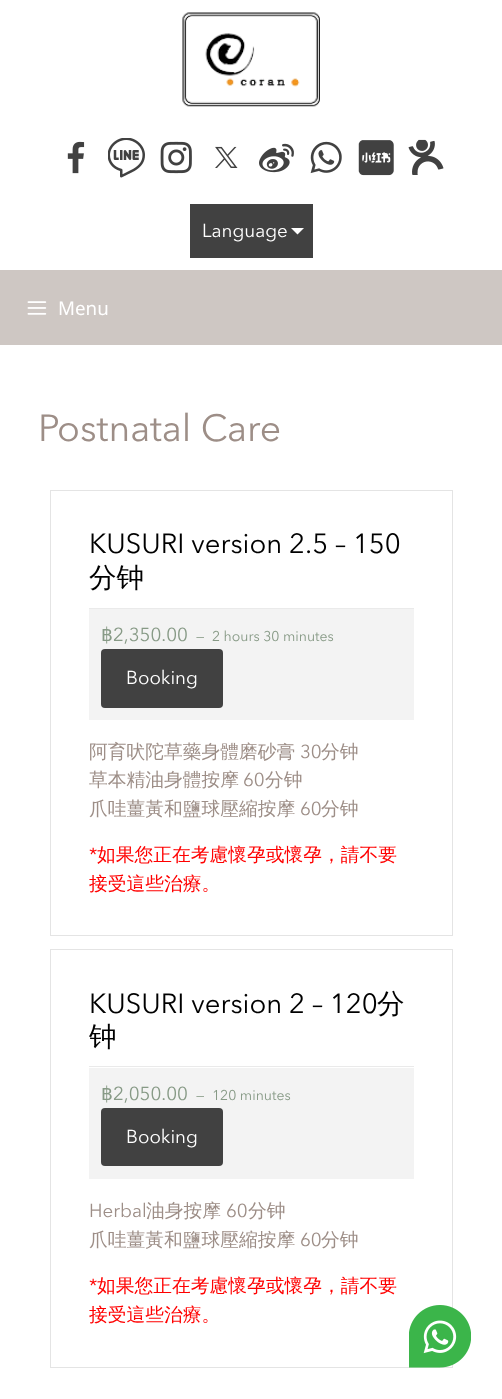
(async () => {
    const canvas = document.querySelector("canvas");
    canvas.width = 502;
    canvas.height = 1399;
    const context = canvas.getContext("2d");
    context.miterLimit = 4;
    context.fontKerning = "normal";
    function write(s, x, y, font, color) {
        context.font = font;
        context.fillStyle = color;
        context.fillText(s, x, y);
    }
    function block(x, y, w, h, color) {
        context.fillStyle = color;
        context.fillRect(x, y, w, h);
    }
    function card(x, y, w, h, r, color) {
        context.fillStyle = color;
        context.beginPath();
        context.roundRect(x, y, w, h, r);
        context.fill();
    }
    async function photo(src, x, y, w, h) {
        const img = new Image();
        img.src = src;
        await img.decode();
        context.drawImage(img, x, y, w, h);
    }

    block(0, 0, 502, 1399, "rgb(255, 255, 255)");
    await photo("media/1.png", 182, 12, 138, 95);
    await photo("media/2.png", 67, 141, 18, 33);
    await photo("media/3.png", 108, 138, 37, 40);
    await photo("media/4.png", 160, 141, 32, 33);
    await photo("media/5.png", 215, 146, 23, 22);
    await photo("media/6.png", 259, 143, 35, 30);
    await photo("media/7.png", 310, 141, 32, 33);
    await photo("media/8.png", 358, 140, 36, 36);
    await photo("media/9.png", 408, 139, 36, 36);
    block(190, 204, 123, 54, "rgb(65, 65, 65)");
    write("Language", 202, 237, "18.75px Avenir Next", "rgb(255, 255, 255)");
    context.beginPath();
    context.moveTo(291, 228);
    context.lineTo(304, 228);
    context.lineTo(297.5, 234.5);
    context.closePath();
    context.fill();
    block(0, 270, 502, 75, "rgb(206, 199, 195)");
    await photo("media/10.png", 27, 301, 20, 14);
    write("Menu", 58, 315, "18.75px Noto Sans", "rgb(255, 255, 255)");
    write("Postnatal Care", 38, 441, "37.5px Avenir Next", "rgb(157, 142, 135)");
    context.strokeStyle = "rgb(228, 228, 228)";
    context.strokeRect(50.5, 490.5, 402, 445);
    block(89, 608, 325, 1, "rgb(234, 234, 234)");
    write("KUSURI version 2.5 – 150", 89, 553, "27.5px Avenir Next", "rgb(0, 0, 0)");
    write("分钟", 89, 587, "500 27.5px WenQuanYi Zen Hei", "rgb(0, 0, 0)");
    block(89, 609, 325, 111, "rgb(243, 243, 243)");
    write("฿", 101, 641, "18.75px DejaVu Sans", "rgb(135, 154, 134)");
    write("2,350.00", 113, 641, "18.75px Avenir Next", "rgb(135, 154, 134)");
    write("—", 196, 641, "14px Avenir Next", "rgb(135, 154, 134)");
    write("2 hours 30 minutes", 212, 641, "14px Avenir Next", "rgb(135, 154, 134)");
    card(101, 649, 122, 59, 4, "rgb(65, 65, 65)");
    write("Booking", 126, 684, "18.75px Avenir Next", "rgb(255, 255, 255)");
    write("阿育吠陀草藥身體磨砂膏", 89, 758, "500 18.75px WenQuanYi Zen Hei", "rgb(157, 142, 135)");
    write("30", 300, 758, "18.75px Avenir Next", "rgb(157, 142, 135)");
    write("分钟", 321, 758, "500 18.75px WenQuanYi Zen Hei", "rgb(157, 142, 135)");
    write("草本精油身體按摩", 89, 786, "500 18.75px WenQuanYi Zen Hei", "rgb(157, 142, 135)");
    write("60", 243, 786, "18.75px Avenir Next", "rgb(157, 142, 135)");
    write("分钟", 265, 786, "500 18.75px WenQuanYi Zen Hei", "rgb(157, 142, 135)");
    write("爪哇薑黃和鹽球壓縮按摩", 89, 815, "500 18.75px WenQuanYi Zen Hei", "rgb(157, 142, 135)");
    write("60", 300, 815, "18.75px Avenir Next", "rgb(157, 142, 135)");
    write("分钟", 321, 815, "500 18.75px WenQuanYi Zen Hei", "rgb(157, 142, 135)");
    write("*", 89, 861, "18.75px Avenir Next", "rgb(255, 0, 0)");
    write("如果您正在考慮懷孕或懷孕，請不要", 97, 861, "500 18.75px WenQuanYi Zen Hei", "rgb(255, 0, 0)");
    write("接受這些治療。", 89, 890, "500 18.75px WenQuanYi Zen Hei", "rgb(255, 0, 0)");
    context.strokeRect(50.5, 949.5, 402, 418);
    block(89, 1066, 325, 1, "rgb(234, 234, 234)");
    write("KUSURI version 2 – 120", 89, 1013, "27.5px Avenir Next", "rgb(0, 0, 0)");
    write("分", 377, 1013, "500 27.5px WenQuanYi Zen Hei", "rgb(0, 0, 0)");
    write("钟", 89, 1046, "500 27.5px WenQuanYi Zen Hei", "rgb(0, 0, 0)");
    block(89, 1068, 325, 111, "rgb(243, 243, 243)");
    write("฿", 101, 1100, "18.75px DejaVu Sans", "rgb(135, 154, 134)");
    write("2,050.00", 113, 1100, "18.75px Avenir Next", "rgb(135, 154, 134)");
    write("—", 196, 1100, "14px Avenir Next", "rgb(135, 154, 134)");
    write("120 minutes", 212, 1100, "14px Avenir Next", "rgb(135, 154, 134)");
    card(101, 1108, 122, 58, 4, "rgb(65, 65, 65)");
    write("Booking", 126, 1143, "18.75px Avenir Next", "rgb(255, 255, 255)");
    write("Herbal", 89, 1217, "18.75px Avenir Next", "rgb(157, 142, 135)");
    write("油身按摩", 146, 1217, "500 18.75px WenQuanYi Zen Hei", "rgb(157, 142, 135)");
    write("60", 226, 1217, "18.75px Avenir Next", "rgb(157, 142, 135)");
    write("分钟", 248, 1217, "500 18.75px WenQuanYi Zen Hei", "rgb(157, 142, 135)");
    write("爪哇薑黃和鹽球壓縮按摩", 89, 1246, "500 18.75px WenQuanYi Zen Hei", "rgb(157, 142, 135)");
    write("60", 300, 1246, "18.75px Avenir Next", "rgb(157, 142, 135)");
    write("分钟", 321, 1246, "500 18.75px WenQuanYi Zen Hei", "rgb(157, 142, 135)");
    write("*", 89, 1292, "18.75px Avenir Next", "rgb(255, 0, 0)");
    write("如果您正在考慮懷孕或懷孕，請不要", 97, 1292, "500 18.75px WenQuanYi Zen Hei", "rgb(255, 0, 0)");
    write("接受這些治療。", 89, 1321, "500 18.75px WenQuanYi Zen Hei", "rgb(255, 0, 0)");
    await photo("media/11.png", 409, 1305, 62, 63);
})();
